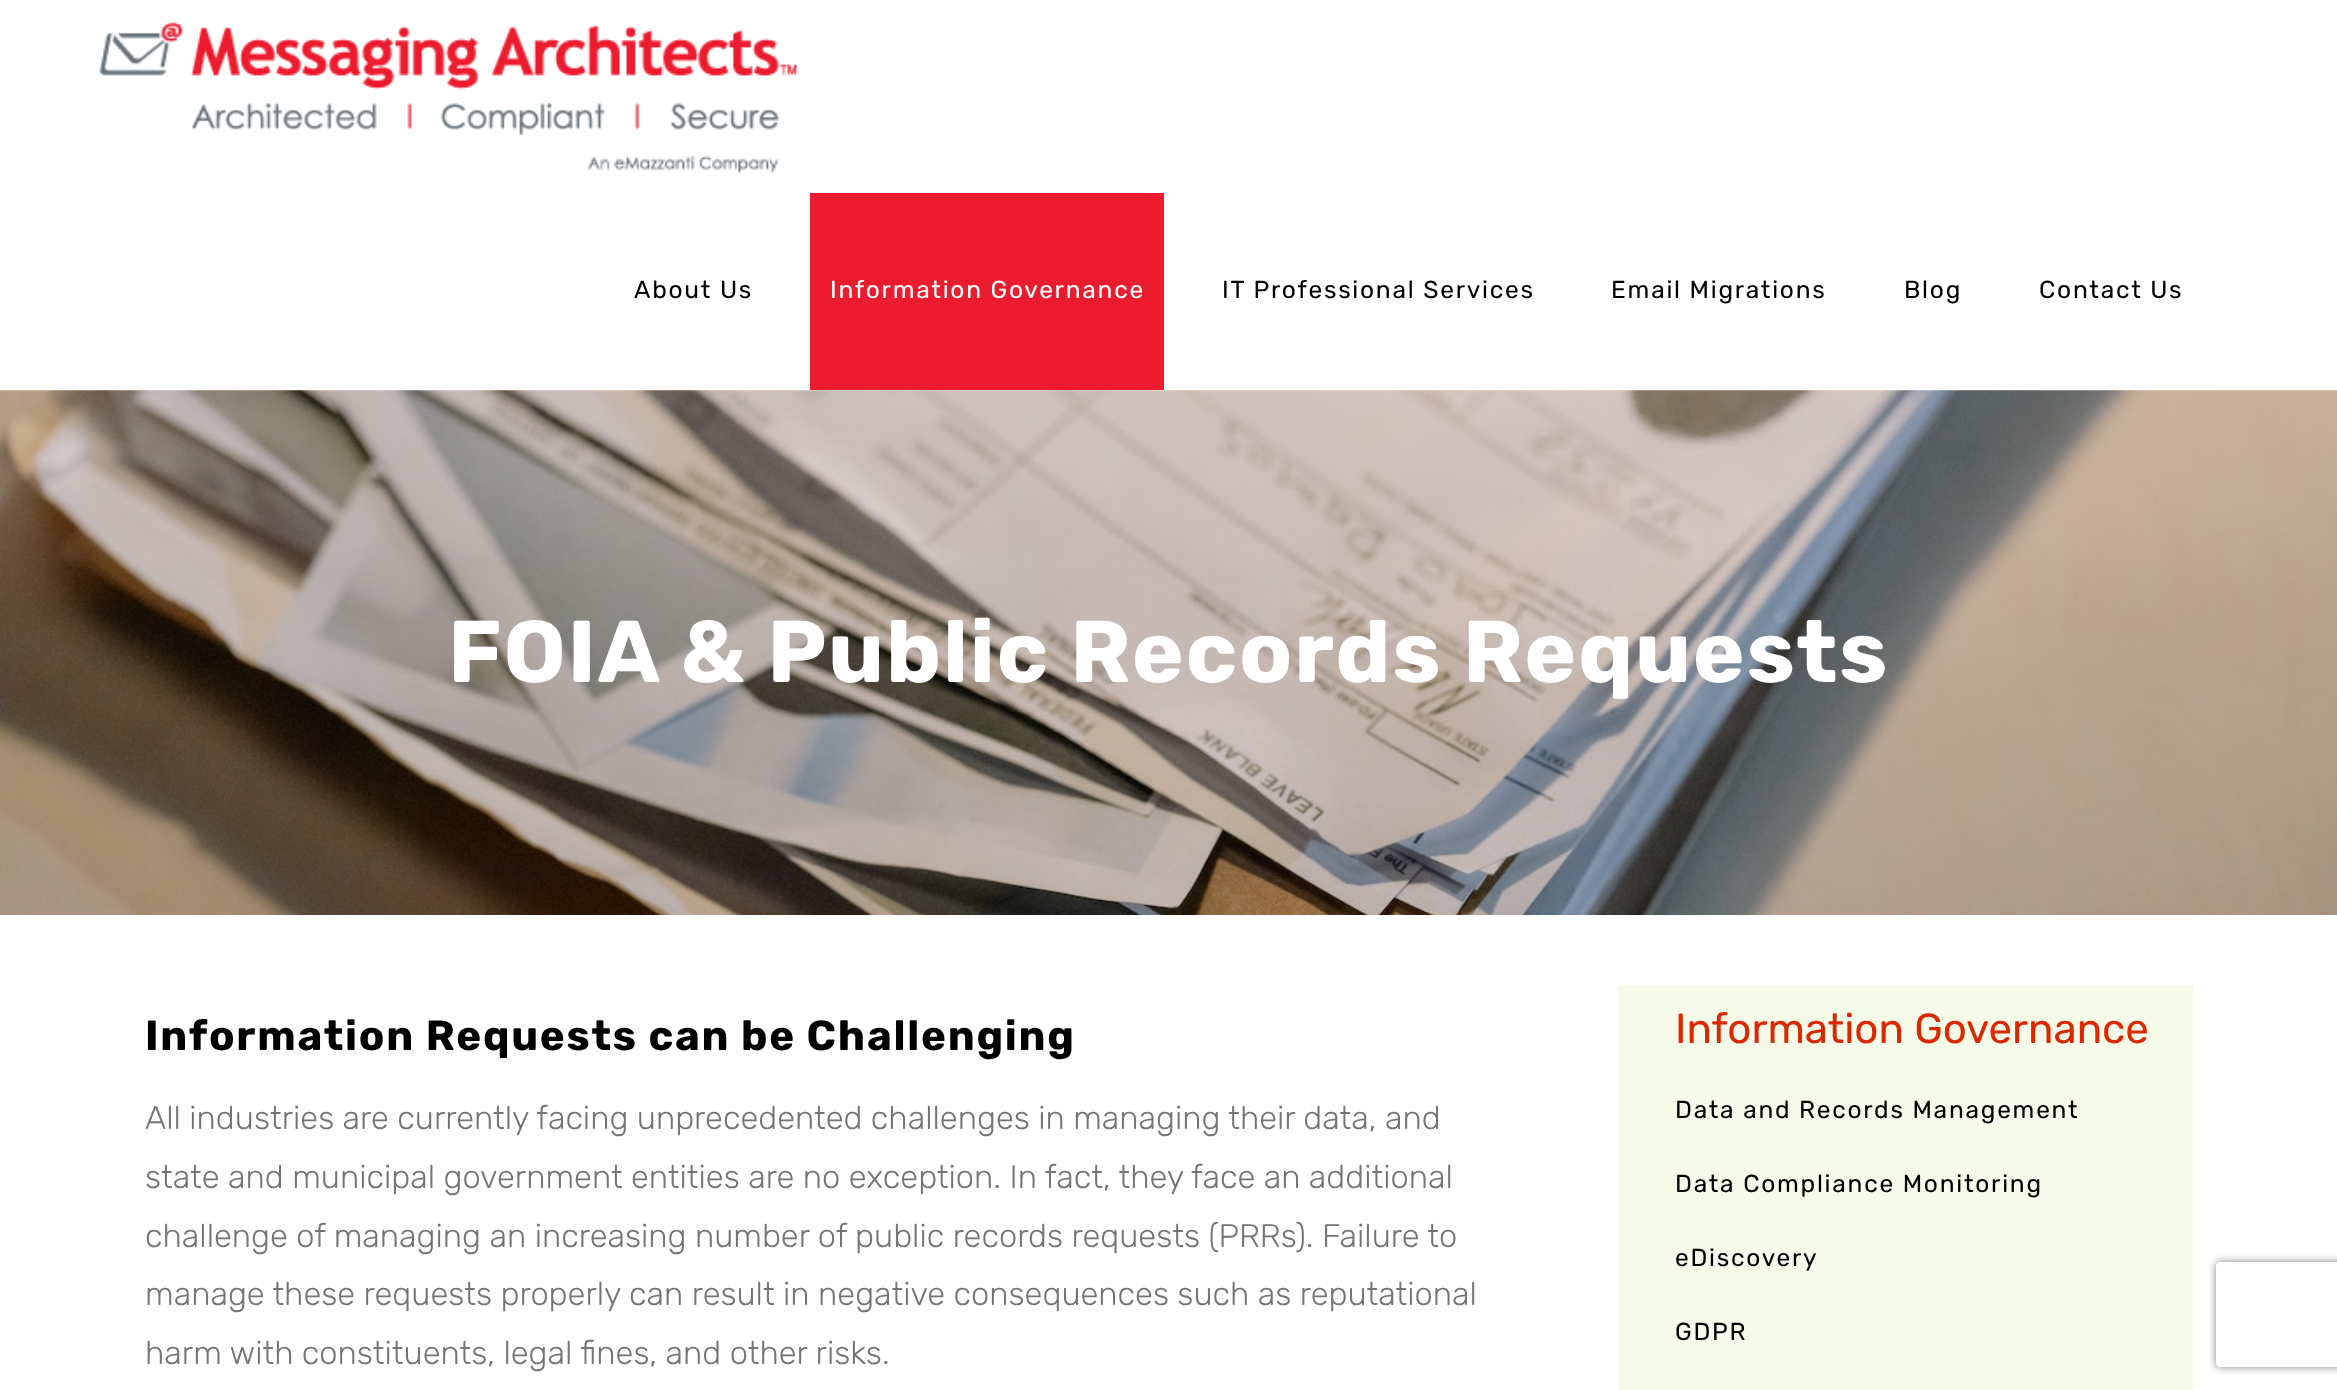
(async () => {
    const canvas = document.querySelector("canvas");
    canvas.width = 2337;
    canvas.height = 1390;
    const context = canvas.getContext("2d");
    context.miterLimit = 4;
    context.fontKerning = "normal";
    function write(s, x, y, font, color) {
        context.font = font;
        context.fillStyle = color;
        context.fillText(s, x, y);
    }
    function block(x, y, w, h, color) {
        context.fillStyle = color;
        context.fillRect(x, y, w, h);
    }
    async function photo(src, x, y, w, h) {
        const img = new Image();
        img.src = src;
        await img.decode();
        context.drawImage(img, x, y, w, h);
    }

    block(0, 0, 2337, 1390, "rgb(255, 255, 255)");
    await photo("media/1.png", 99, 22, 698, 152);
    context.letterSpacing = "1.75px";
    write("About Us", 634, 298, "24.5px Rubik", "rgb(0, 0, 0)");
    block(810, 193, 354, 197, "rgb(237, 27, 46)");
    write("Information Governance", 830, 298, "24.5px Rubik", "rgb(255, 255, 255)");
    write("IT Professional Services", 1222, 298, "24.5px Rubik", "rgb(0, 0, 0)");
    write("Email Migrations", 1611, 298, "24.5px Rubik", "rgb(0, 0, 0)");
    write("Blog", 1904, 298, "24.5px Rubik", "rgb(0, 0, 0)");
    write("Contact Us", 2039, 298, "24.5px Rubik", "rgb(0, 0, 0)");
    await photo("media/2.png", 0, 390, 2337, 525);
    write("FOIA & Public Records Requests", 448, 682, "bold 87.5px Rubik", "rgb(255, 255, 255)");
    write("Information Requests can be Challenging", 145, 1050, "bold 42px Rubik", "rgb(0, 0, 0)");
    context.letterSpacing = "0px";
    write("All industries are currently facing unprecedented challenges in managing their data, and", 145, 1129, "300 32.65px Rubik", "rgb(116, 116, 116)");
    write("state and municipal government entities are no exception. In fact, they face an additional", 145, 1188, "300 32.65px Rubik", "rgb(116, 116, 116)");
    write("challenge of managing an increasing number of public records requests (PRRs). Failure to", 145, 1247, "300 32.65px Rubik", "rgb(116, 116, 116)");
    write("manage these requests properly can result in negative consequences such as reputational", 145, 1305, "300 32.65px Rubik", "rgb(116, 116, 116)");
    write("harm with constituents, legal fines, and other risks.", 145, 1364, "300 32.65px Rubik", "rgb(116, 116, 116)");
    block(1619, 985, 574, 405, "rgb(245, 250, 233)");
    write("Information Governance", 1675, 1043, "42px Rubik", "rgb(218, 41, 0)");
    context.letterSpacing = "1.75px";
    write("Data and Records Management", 1675, 1118, "24.5px Rubik", "rgb(0, 0, 0)");
    write("Data Compliance Monitoring", 1675, 1192, "24.5px Rubik", "rgb(0, 0, 0)");
    write("eDiscovery", 1675, 1266, "24.5px Rubik", "rgb(0, 0, 0)");
    write("GDPR", 1675, 1340, "24.5px Rubik", "rgb(0, 0, 0)");
    context.save();
    context.beginPath();
    context.moveTo(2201, 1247);
    context.lineTo(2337, 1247);
    context.lineTo(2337, 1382);
    context.lineTo(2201, 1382);
    context.closePath();
    context.moveTo(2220, 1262);
    context.lineTo(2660, 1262);
    context.bezierCurveTo(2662, 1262, 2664, 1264, 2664, 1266);
    context.lineTo(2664, 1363);
    context.bezierCurveTo(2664, 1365, 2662, 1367, 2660, 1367);
    context.lineTo(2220, 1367);
    context.bezierCurveTo(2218, 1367, 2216, 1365, 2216, 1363);
    context.lineTo(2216, 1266);
    context.bezierCurveTo(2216, 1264, 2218, 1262, 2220, 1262);
    context.closePath();
    context.clip("evenodd");
    context.fillStyle = "rgb(128, 128, 128)";
    context.filter = "blur(4.5px)";
    context.beginPath();
    context.roundRect(2216, 1262, 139, 105, 4);
    context.fill();
    context.filter = "none";
    context.restore();
})();
